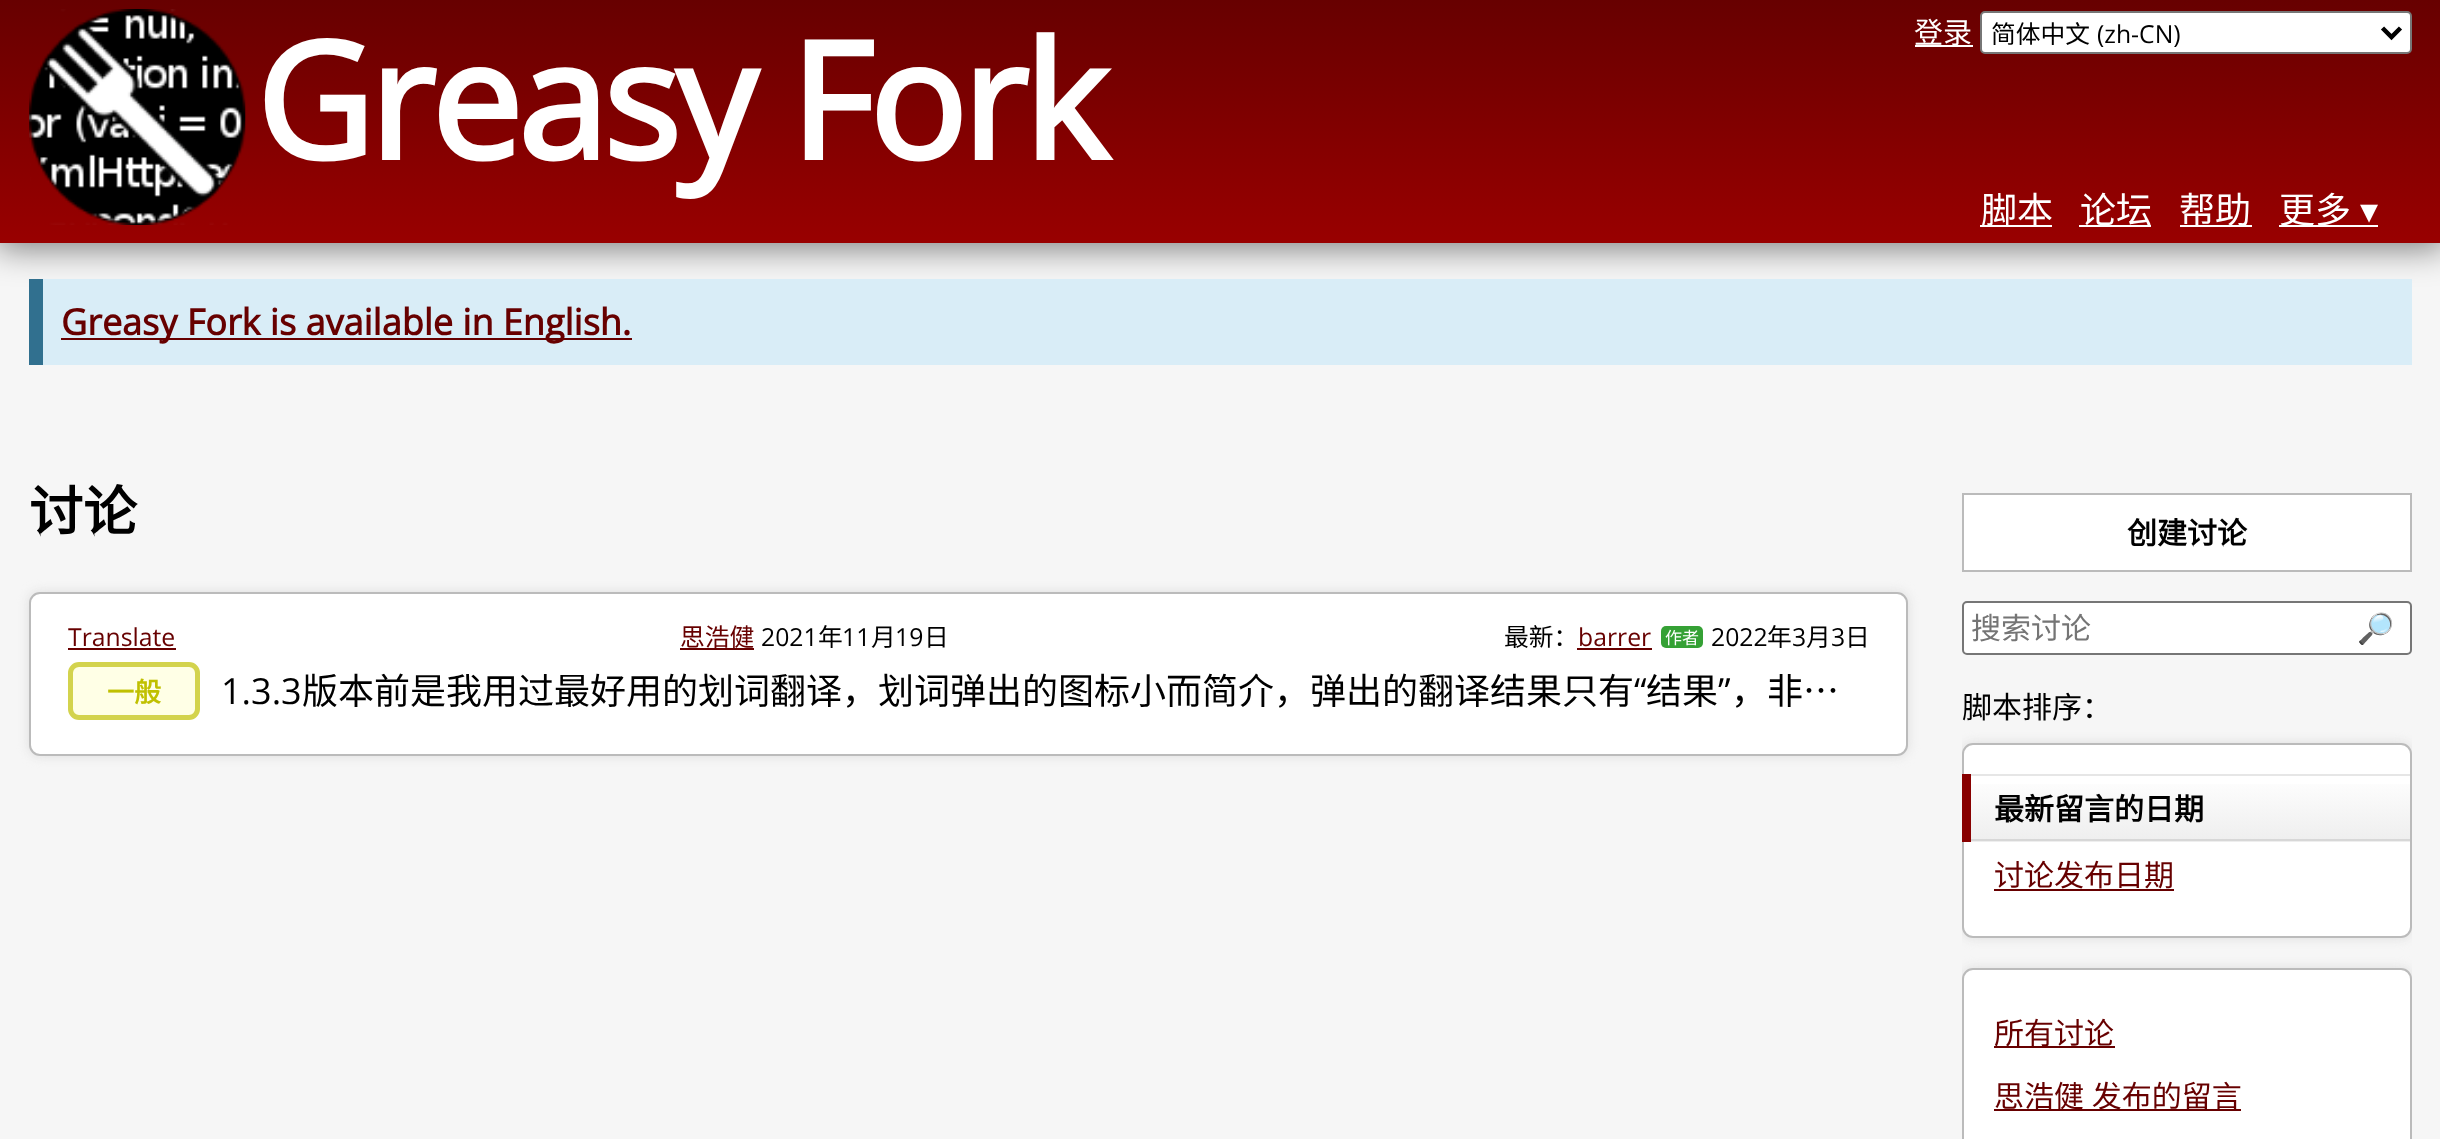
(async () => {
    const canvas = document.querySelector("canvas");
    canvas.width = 2440;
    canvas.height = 1139;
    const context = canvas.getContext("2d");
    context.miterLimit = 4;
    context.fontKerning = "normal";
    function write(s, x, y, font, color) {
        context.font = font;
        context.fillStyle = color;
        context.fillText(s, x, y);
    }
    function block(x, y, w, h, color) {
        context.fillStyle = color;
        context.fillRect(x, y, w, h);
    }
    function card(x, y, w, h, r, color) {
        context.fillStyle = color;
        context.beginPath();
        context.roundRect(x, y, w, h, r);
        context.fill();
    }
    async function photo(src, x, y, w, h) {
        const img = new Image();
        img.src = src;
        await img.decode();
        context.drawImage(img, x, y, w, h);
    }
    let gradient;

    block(0, 0, 2440, 1139, "rgb(246, 246, 246)");
    context.fillStyle = "rgba(0, 0, 0, 0.5)";
    context.filter = "blur(17px)";
    context.beginPath();
    context.rect(-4, -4, 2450, 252);
    context.fill();
    context.filter = "none";
    gradient = context.createLinearGradient(1221, 0, 1221, 243);
    gradient.addColorStop(0, "rgb(103, 0, 0)");
    gradient.addColorStop(1, "rgb(153, 0, 0)");
    context.fillStyle = gradient;
    context.fillRect(0, 0, 2440, 243);
    await photo("media/1.png", 29, 9, 217, 216);
    context.letterSpacing = "-4.5px";
    write("Greasy Fork", 255, 160, "bold 162px Open Sans", "rgb(255, 255, 255)");
    block(1915, 45, 58, 2, "rgb(255, 255, 255)");
    context.letterSpacing = "0px";
    write("登录", 1914, 43, "29px Noto Sans CJK SC", "rgb(255, 255, 255)");
    context.beginPath();
    context.roundRect(1981, 12, 430, 41, 4);
    context.fill();
    context.strokeStyle = "rgb(118, 118, 118)";
    context.lineWidth = 2;
    context.stroke();
    context.beginPath();
    context.moveTo(2382.5, 28);
    context.lineTo(2391.5, 37);
    context.lineTo(2400.5, 28);
    context.strokeStyle = "rgb(0, 0, 0)";
    context.lineWidth = 4.5;
    context.stroke();
    write("简体中文", 1991, 43, "24.75px Noto Sans CJK SC", "rgb(0, 0, 0)");
    write("(zh-CN)", 2097, 43, "24.75px Open Sans", "rgb(0, 0, 0)");
    block(1980, 225, 72, 2, "rgb(255, 255, 255)");
    write("脚本", 1981, 223, "36px Noto Sans CJK SC", "rgb(255, 255, 255)");
    block(2079, 225, 72, 2, "rgb(255, 255, 255)");
    write("论坛", 2080, 223, "36px Noto Sans CJK SC", "rgb(255, 255, 255)");
    block(2180, 225, 72, 2, "rgb(255, 255, 255)");
    write("帮助", 2179, 223, "36px Noto Sans CJK SC", "rgb(255, 255, 255)");
    block(2279, 225, 99, 2, "rgb(255, 255, 255)");
    write("更多", 2279, 223, "36px Noto Sans CJK SC", "rgb(255, 255, 255)");
    write("▾", 2360, 223, "36px DejaVu Sans", "rgb(255, 255, 255)");
    block(43, 279, 2369, 86, "rgb(217, 237, 247)");
    block(29, 279, 14, 86, "rgb(49, 112, 143)");
    block(61, 338, 571, 2, "rgb(103, 0, 0)");
    write("Greasy Fork is available in English.", 61, 335, "bold 36px Open Sans", "rgb(103, 0, 0)");
    write("讨论", 29, 531, "bold 54px Noto Sans CJK SC", "rgb(0, 0, 0)");
    context.fillStyle = "rgb(221, 221, 221)";
    context.filter = "blur(5.5px)";
    context.beginPath();
    context.roundRect(29, 592, 1879, 164, 11);
    context.fill();
    context.filter = "none";
    context.fillStyle = "rgb(255, 255, 255)";
    context.beginPath();
    context.roundRect(30, 593, 1877, 162, 10);
    context.fill();
    context.strokeStyle = "rgb(187, 187, 187)";
    context.lineWidth = 2;
    context.stroke();
    write("Translate", 68, 646, "24.75px Open Sans", "rgb(103, 0, 0)");
    block(68, 648, 108, 2, "rgb(103, 0, 0)");
    write("思浩健", 680, 646, "24.75px Noto Sans CJK SC", "rgb(103, 0, 0)");
    block(680, 648, 74, 2, "rgb(103, 0, 0)");
    write("2021", 761, 646, "24.75px Open Sans", "rgb(0, 0, 0)");
    write("年", 818, 646, "24.75px Noto Sans CJK SC", "rgb(0, 0, 0)");
    write("11", 842, 646, "24.75px Open Sans", "rgb(0, 0, 0)");
    write("月", 871, 646, "24.75px Noto Sans CJK SC", "rgb(0, 0, 0)");
    write("19", 895, 646, "24.75px Open Sans", "rgb(0, 0, 0)");
    write("日", 924, 646, "24.75px Noto Sans CJK SC", "rgb(0, 0, 0)");
    write("最新：", 1504, 646, "24.75px Noto Sans CJK SC", "rgb(0, 0, 0)");
    write("barrer", 1578, 646, "24.75px Open Sans", "rgb(103, 0, 0)");
    block(1577, 648, 75, 2, "rgb(103, 0, 0)");
    card(1661, 626, 42, 22, 5, "rgb(53, 161, 53)");
    write("作者", 1665, 644, "17px Noto Sans CJK SC", "rgb(255, 255, 255)");
    write("2022", 1711, 646, "24.75px Open Sans", "rgb(0, 0, 0)");
    write("年", 1767, 646, "24.75px Noto Sans CJK SC", "rgb(0, 0, 0)");
    write("3", 1792, 646, "24.75px Open Sans", "rgb(0, 0, 0)");
    write("月", 1806, 646, "24.75px Noto Sans CJK SC", "rgb(0, 0, 0)");
    write("3", 1831, 646, "24.75px Open Sans", "rgb(0, 0, 0)");
    write("日", 1845, 646, "24.75px Noto Sans CJK SC", "rgb(0, 0, 0)");
    context.fillStyle = "rgb(255, 255, 230)";
    context.beginPath();
    context.roundRect(70.5, 664.5, 127, 53, 8.5);
    context.fill();
    context.strokeStyle = "rgb(211, 211, 77)";
    context.lineWidth = 5;
    context.stroke();
    write("一般", 107, 702, "bold 27px Noto Sans CJK SC", "rgb(192, 192, 0)");
    write("1.3.3", 221, 704, "36px Open Sans", "rgb(0, 0, 0)");
    write("版本前是我用过最好用的划词翻译，划词弹出的图标小而简介，弹出的翻译结果只有", 302, 704, "36px Noto Sans CJK SC", "rgb(0, 0, 0)");
    write("“", 1634, 704, "36px Open Sans", "rgb(0, 0, 0)");
    write("结果", 1646, 704, "36px Noto Sans CJK SC", "rgb(0, 0, 0)");
    write("”", 1718, 704, "36px Open Sans", "rgb(0, 0, 0)");
    write("，非…", 1731, 704, "36px Noto Sans CJK SC", "rgb(0, 0, 0)");
    context.fillStyle = "rgb(255, 255, 255)";
    context.beginPath();
    context.rect(1963, 494, 448, 77);
    context.fill();
    context.strokeStyle = "rgb(187, 187, 187)";
    context.lineWidth = 2;
    context.stroke();
    write("创建讨论", 2127, 544, "bold 30px Noto Sans CJK SC", "rgb(0, 0, 0)");
    context.fillStyle = "rgb(255, 255, 255)";
    context.beginPath();
    context.roundRect(1963, 602, 448, 52, 4);
    context.fill();
    context.strokeStyle = "rgb(118, 118, 118)";
    context.stroke();
    write("搜索讨论", 1971, 639, "30px Noto Sans CJK SC", "rgb(117, 117, 117)");
    write("🔎", 2357, 639, "30px Noto Color Emoji", "rgb(128, 128, 128)");
    write("脚本排序：", 1962, 718, "30px Noto Sans CJK SC", "rgb(0, 0, 0)");
    context.save();
    context.beginPath();
    context.rect(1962, 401, 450, 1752);
    context.clip();
    context.fillStyle = "rgb(221, 221, 221)";
    context.filter = "blur(5.5px)";
    context.beginPath();
    context.roundRect(1962, 743, 450, 195, 11);
    context.fill();
    context.filter = "none";
    context.restore();
    context.fillStyle = "rgb(255, 255, 255)";
    context.beginPath();
    context.roundRect(1963, 744, 448, 193, 10);
    context.fill();
    context.strokeStyle = "rgb(187, 187, 187)";
    context.stroke();
    gradient = context.createLinearGradient(2190, 774, 2190, 842);
    gradient.addColorStop(0, "rgb(255, 255, 255)");
    gradient.addColorStop(1, "rgb(238, 238, 238)");
    context.fillStyle = gradient;
    context.fillRect(1971, 784, 439, 58);
    block(1971, 839, 439, 2, "rgb(215, 215, 215)");
    block(1971, 774, 439, 2, "rgb(230, 230, 230)");
    block(1962, 774, 9, 68, "rgb(136, 0, 0)");
    write("最新留言的日期", 1994, 820, "bold 30px Noto Sans CJK SC", "rgb(0, 0, 0)");
    write("讨论发布日期", 1994, 886, "30px Noto Sans CJK SC", "rgb(103, 0, 0)");
    block(1994, 889, 180, 2, "rgb(103, 0, 0)");
    context.save();
    context.beginPath();
    context.rect(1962, 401, 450, 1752);
    context.clip();
    context.fillStyle = "rgb(221, 221, 221)";
    context.filter = "blur(5.5px)";
    context.beginPath();
    context.roundRect(1962, 968, 450, 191, 11);
    context.fill();
    context.filter = "none";
    context.restore();
    context.fillStyle = "rgb(255, 255, 255)";
    context.beginPath();
    context.roundRect(1963, 969, 448, 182, 10);
    context.fill();
    context.stroke();
    block(1994, 1046, 121, 2, "rgb(103, 0, 0)");
    write("所有讨论", 1994, 1044, "30px Noto Sans CJK SC", "rgb(103, 0, 0)");
    block(1994, 1109, 247, 2, "rgb(103, 0, 0)");
    context.wordSpacing = "1px";
    write("思浩健 发布的留言", 1994, 1107, "30px Noto Sans CJK SC", "rgb(103, 0, 0)");
})();
